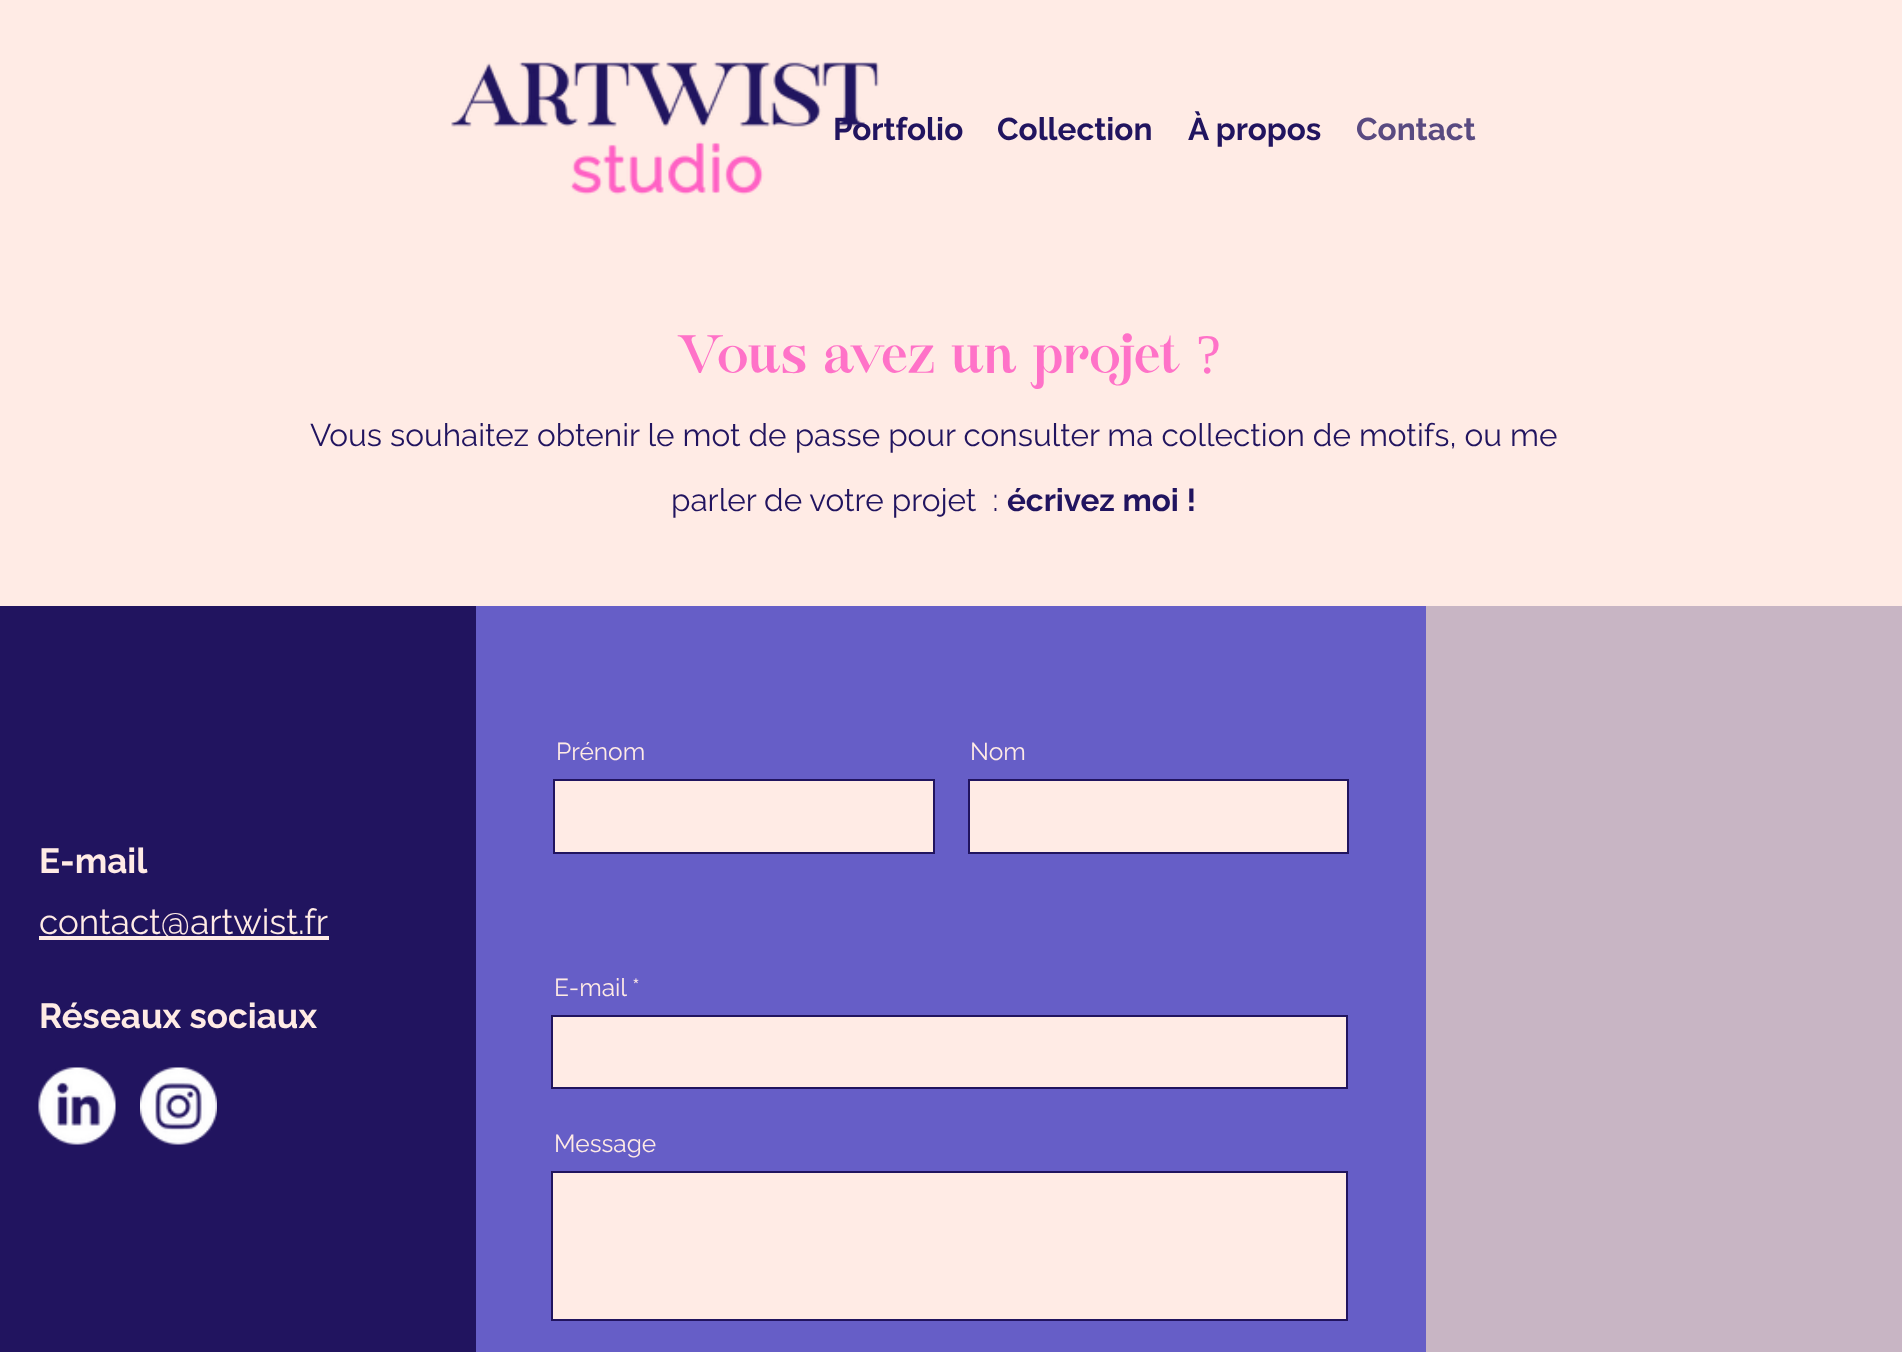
(async () => {
    const canvas = document.querySelector("canvas");
    canvas.width = 1902;
    canvas.height = 1352;
    const context = canvas.getContext("2d");
    context.miterLimit = 4;
    context.fontKerning = "normal";
    function write(s, x, y, font, color) {
        context.font = font;
        context.fillStyle = color;
        context.fillText(s, x, y);
    }
    function block(x, y, w, h, color) {
        context.fillStyle = color;
        context.fillRect(x, y, w, h);
    }
    async function photo(src, x, y, w, h) {
        const img = new Image();
        img.src = src;
        await img.decode();
        context.drawImage(img, x, y, w, h);
    }

    block(0, 0, 1902, 1352, "rgb(255, 235, 229)");
    await photo("media/1.png", 451, 62, 428, 133);
    write("Portfolio", 833, 140, "bold 31.5px Raleway", "rgb(33, 20, 95)");
    write("Collection", 997, 140, "bold 31.5px Raleway", "rgb(33, 20, 95)");
    write("À propos", 1188, 140, "bold 31.5px Raleway", "rgb(33, 20, 95)");
    write("Contact", 1356, 140, "bold 31.5px Raleway", "rgb(89, 74, 129)");
    write("Vous avez un projet", 678, 373, "56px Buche", "rgb(255, 114, 200)");
    write("?", 1196, 373, "56px Liberation Serif", "rgb(255, 114, 200)");
    write("Vous souhaitez obtenir le mot de passe pour consulter ma collection de motifs, ou me", 310, 446, "31.5px Raleway", "rgb(33, 20, 95)");
    write("parler de votre projet  :", 671, 511, "31.5px Raleway", "rgb(33, 20, 95)");
    write("écrivez moi !", 1007, 511, "bold 31.5px Raleway", "rgb(33, 20, 95)");
    block(0, 606, 476, 746, "rgb(33, 20, 95)");
    write("E-mail", 39, 873, "bold 35px Raleway", "rgb(255, 235, 229)");
    block(39, 936, 290, 4, "rgb(255, 235, 229)");
    write("contact@artwist.fr", 39, 934, "35px Raleway", "rgb(255, 235, 229)");
    write("Réseaux sociaux", 39, 1028, "bold 35px Raleway", "rgb(255, 235, 229)");
    await photo("media/2.png", 38, 1067, 78, 78);
    await photo("media/3.png", 140, 1067, 77, 78);
    block(476, 606, 950, 746, "rgb(102, 94, 199)");
    write("Prénom", 556, 760, "24.5px Raleway", "rgb(255, 235, 229)");
    context.beginPath();
    context.rect(554, 780, 380, 73);
    context.fill();
    context.strokeStyle = "rgb(33, 20, 95)";
    context.lineWidth = 2;
    context.stroke();
    write("Nom", 970, 760, "24.5px Raleway", "rgb(255, 235, 229)");
    context.beginPath();
    context.rect(969, 780, 379, 73);
    context.fill();
    context.stroke();
    write("E-mail", 554, 996, "24.5px Raleway", "rgb(255, 235, 229)");
    write("*", 632, 996, "24.5px Raleway", "rgb(255, 235, 229)");
    context.beginPath();
    context.rect(552, 1016, 795, 72);
    context.fill();
    context.stroke();
    write("Message", 554, 1152, "24.5px Raleway", "rgb(255, 235, 229)");
    context.beginPath();
    context.rect(552, 1172, 795, 148);
    context.fill();
    context.stroke();
    block(1426, 606, 476, 746, "rgb(200, 181, 196)");
})();
